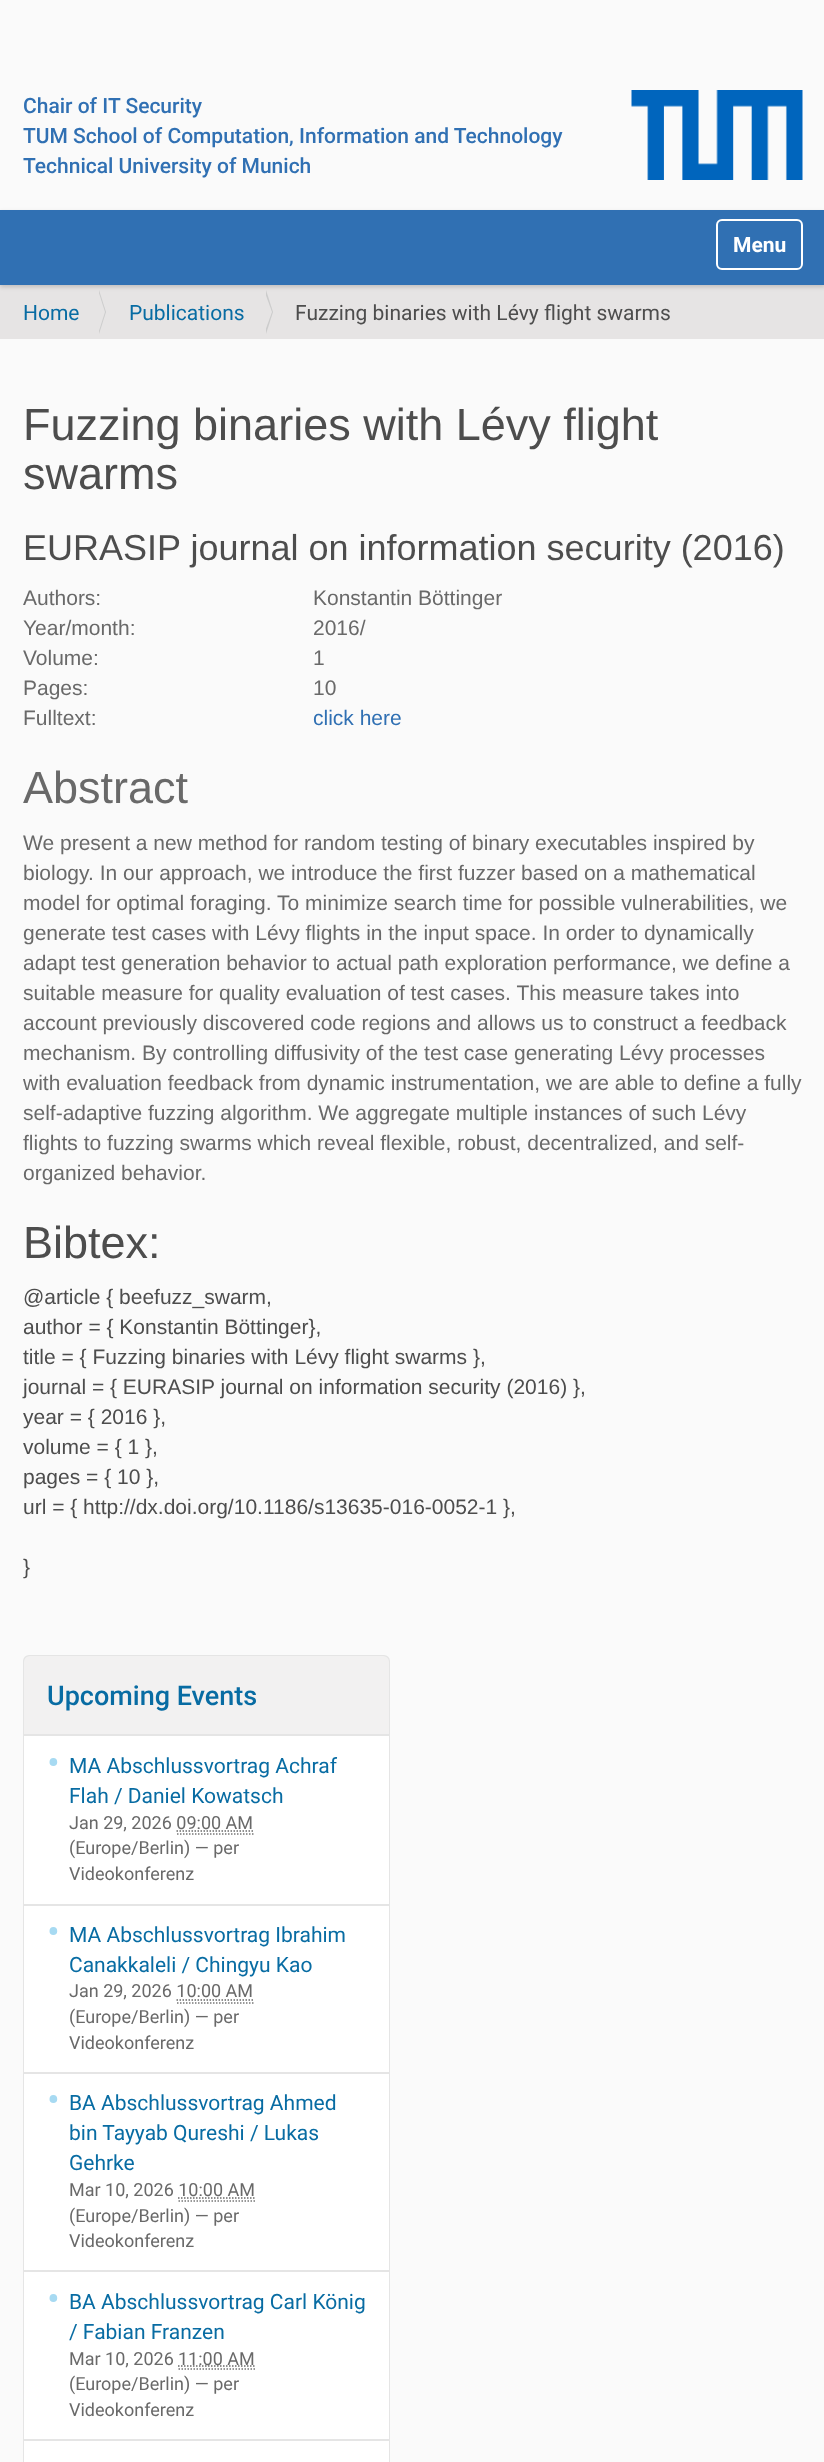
(async () => {
    const canvas = document.querySelector("canvas");
    canvas.width = 824;
    canvas.height = 2462;
    const context = canvas.getContext("2d");
    context.miterLimit = 4;
    context.fontKerning = "normal";
    function write(s, x, y, font, color) {
        context.font = font;
        context.fillStyle = color;
        context.fillText(s, x, y);
    }
    function block(x, y, w, h, color) {
        context.fillStyle = color;
        context.fillRect(x, y, w, h);
    }
    async function photo(src, x, y, w, h) {
        const img = new Image();
        img.src = src;
        await img.decode();
        context.drawImage(img, x, y, w, h);
    }

    block(0, 0, 824, 2462, "rgb(250, 250, 250)");
    write("Chair of IT Security", 23, 113, "500 21px Roboto", "rgb(48, 112, 179)");
    write("TUM School of Computation, Information and Technology", 23, 143, "500 21px Roboto", "rgb(48, 112, 179)");
    write("Technical University of Munich", 23, 173, "500 21px Roboto", "rgb(48, 112, 179)");
    await photo("media/1.png", 631, 90, 172, 90);
    block(0, 285, 824, 54, "rgb(230, 228, 228)");
    context.fillStyle = "rgba(0, 0, 0, 0.17)";
    context.filter = "blur(2px)";
    context.beginPath();
    context.rect(0, 212, 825, 75);
    context.fill();
    context.filter = "none";
    block(0, 210, 824, 75, "rgb(48, 112, 179)");
    context.beginPath();
    context.roundRect(717, 220, 85, 49, 5);
    context.strokeStyle = "rgb(255, 255, 255)";
    context.lineWidth = 2;
    context.stroke();
    write("Menu", 733, 252, "bold 21px Roboto", "rgb(255, 255, 255)");
    write("Home", 23, 320, "21px Roboto", "rgb(8, 108, 163)");
    context.fillStyle = "rgb(204, 204, 204)";
    context.beginPath();
    context.moveTo(99, 334);
    context.lineTo(99, 290);
    context.lineTo(106, 312);
    context.closePath();
    context.fill();
    context.fillStyle = "rgb(230, 228, 228)";
    context.beginPath();
    context.moveTo(98, 334);
    context.lineTo(98, 290);
    context.lineTo(105, 312);
    context.closePath();
    context.fill();
    write("Publications", 129, 320, "21px Roboto", "rgb(8, 108, 163)");
    context.fillStyle = "rgb(204, 204, 204)";
    context.beginPath();
    context.moveTo(266, 334);
    context.lineTo(266, 290);
    context.lineTo(273, 312);
    context.closePath();
    context.fill();
    context.fillStyle = "rgb(230, 228, 228)";
    context.beginPath();
    context.moveTo(264, 334);
    context.lineTo(264, 290);
    context.lineTo(272, 312);
    context.closePath();
    context.fill();
    write("Fuzzing binaries with Lévy flight swarms", 295, 320, "21px Roboto", "rgb(77, 77, 77)");
    write("Fuzzing binaries with Lévy flight", 23, 440, "45px Liberation Sans", "rgb(77, 77, 77)");
    write("swarms", 23, 489, "45px Liberation Sans", "rgb(77, 77, 77)");
    write("EURASIP journal on information security (2016)", 23, 560, "36px Liberation Sans", "rgb(77, 77, 77)");
    write("Authors:", 23, 605, "21px Liberation Sans", "rgb(105, 105, 105)");
    write("Konstantin Böttinger", 313, 605, "21px Liberation Sans", "rgb(105, 105, 105)");
    write("Year/month:", 23, 635, "21px Liberation Sans", "rgb(105, 105, 105)");
    write("2016/", 313, 635, "21px Liberation Sans", "rgb(105, 105, 105)");
    write("Volume:", 23, 665, "21px Liberation Sans", "rgb(105, 105, 105)");
    write("1", 313, 665, "21px Liberation Sans", "rgb(105, 105, 105)");
    write("Pages:", 23, 695, "21px Liberation Sans", "rgb(105, 105, 105)");
    write("10", 313, 695, "21px Liberation Sans", "rgb(105, 105, 105)");
    write("Fulltext:", 23, 725, "21px Liberation Sans", "rgb(105, 105, 105)");
    write("click here", 313, 725, "21px Liberation Sans", "rgb(48, 112, 179)");
    write("Abstract", 23, 803, "45px Liberation Sans", "rgb(105, 105, 105)");
    write("We present a new method for random testing of binary executables inspired by", 23, 850, "21px Liberation Sans", "rgb(105, 105, 105)");
    write("biology. In our approach, we introduce the first fuzzer based on a mathematical", 23, 880, "21px Liberation Sans", "rgb(105, 105, 105)");
    write("model for optimal foraging. To minimize search time for possible vulnerabilities, we", 23, 910, "21px Liberation Sans", "rgb(105, 105, 105)");
    write("generate test cases with Lévy flights in the input space. In order to dynamically", 23, 940, "21px Liberation Sans", "rgb(105, 105, 105)");
    write("adapt test generation behavior to actual path exploration performance, we define a", 23, 970, "21px Liberation Sans", "rgb(105, 105, 105)");
    write("suitable measure for quality evaluation of test cases. This measure takes into", 23, 1000, "21px Liberation Sans", "rgb(105, 105, 105)");
    write("account previously discovered code regions and allows us to construct a feedback", 23, 1030, "21px Liberation Sans", "rgb(105, 105, 105)");
    write("mechanism. By controlling diffusivity of the test case generating Lévy processes", 23, 1060, "21px Liberation Sans", "rgb(105, 105, 105)");
    write("with evaluation feedback from dynamic instrumentation, we are able to define a fully", 23, 1090, "21px Liberation Sans", "rgb(105, 105, 105)");
    write("self-adaptive fuzzing algorithm. We aggregate multiple instances of such Lévy", 23, 1120, "21px Liberation Sans", "rgb(105, 105, 105)");
    write("flights to fuzzing swarms which reveal flexible, robust, decentralized, and self-", 23, 1150, "21px Liberation Sans", "rgb(105, 105, 105)");
    write("organized behavior.", 23, 1180, "21px Liberation Sans", "rgb(105, 105, 105)");
    write("Bibtex:", 23, 1258, "45px Liberation Sans", "rgb(77, 77, 77)");
    write("@article { beefuzz_swarm,", 23, 1304, "21px Liberation Sans", "rgb(77, 77, 77)");
    write("author = { Konstantin Böttinger},", 23, 1334, "21px Liberation Sans", "rgb(77, 77, 77)");
    write("title = { Fuzzing binaries with Lévy flight swarms },", 23, 1364, "21px Liberation Sans", "rgb(77, 77, 77)");
    write("journal = { EURASIP journal on information security (2016) },", 23, 1394, "21px Liberation Sans", "rgb(77, 77, 77)");
    write("year = { 2016 },", 23, 1424, "21px Liberation Sans", "rgb(77, 77, 77)");
    write("volume = { 1 },", 23, 1454, "21px Liberation Sans", "rgb(77, 77, 77)");
    write("pages = { 10 },", 23, 1484, "21px Liberation Sans", "rgb(77, 77, 77)");
    write("url = { http://dx.doi.org/10.1186/s13635-016-0052-1 },", 23, 1514, "21px Liberation Sans", "rgb(77, 77, 77)");
    write("}", 23, 1574, "21px Liberation Sans", "rgb(77, 77, 77)");
    context.beginPath();
    context.roundRect(24, 1656, 365, 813, 5);
    context.strokeStyle = "rgb(229, 229, 229)";
    context.stroke();
    context.fillStyle = "rgb(242, 241, 241)";
    context.beginPath();
    context.roundRect(24, 1656, 365, 78, [6, 6, 0, 0]);
    context.fill();
    write("Upcoming Events", 47, 1705, "500 27px Roboto", "rgb(8, 108, 163)");
    block(24, 1736, 365, 726, "rgb(255, 255, 255)");
    block(24, 1734, 365, 2, "rgb(229, 229, 229)");
    write("•", 47, 1776, "38px Roboto", "rgb(167, 218, 242)");
    write("MA Abschlussvortrag Achraf", 69, 1773, "21px Roboto", "rgb(8, 108, 163)");
    write("Flah / Daniel Kowatsch", 69, 1803, "21px Roboto", "rgb(8, 108, 163)");
    write("Jan 29, 2026 09:00 AM", 69, 1829, "18px Roboto", "rgb(105, 105, 105)");
    context.beginPath();
    context.moveTo(176.5, 1831);
    context.lineTo(253, 1831);
    context.strokeStyle = "rgb(105, 105, 105)";
    context.lineWidth = 1.5;
    context.setLineDash([1.5, 1.5]);
    context.stroke();
    context.beginPath();
    context.moveTo(177, 1834);
    context.lineTo(253.5, 1834);
    context.strokeStyle = "rgb(119, 119, 119)";
    context.stroke();
    write("(Europe/Berlin) — per", 69, 1854, "18px Roboto", "rgb(105, 105, 105)");
    write("Videokonferenz", 69, 1880, "18px Roboto", "rgb(105, 105, 105)");
    block(24, 1904, 365, 2, "rgb(229, 229, 229)");
    write("•", 47, 1945, "38px Roboto", "rgb(167, 218, 242)");
    write("MA Abschlussvortrag Ibrahim", 69, 1942, "21px Roboto", "rgb(8, 108, 163)");
    write("Canakkaleli / Chingyu Kao", 69, 1972, "21px Roboto", "rgb(8, 108, 163)");
    write("Jan 29, 2026 10:00 AM", 69, 1997, "18px Roboto", "rgb(105, 105, 105)");
    context.beginPath();
    context.moveTo(176.5, 2000);
    context.lineTo(253, 2000);
    context.strokeStyle = "rgb(105, 105, 105)";
    context.stroke();
    context.beginPath();
    context.moveTo(177, 2003);
    context.lineTo(253.5, 2003);
    context.strokeStyle = "rgb(119, 119, 119)";
    context.stroke();
    write("(Europe/Berlin) — per", 69, 2023, "18px Roboto", "rgb(105, 105, 105)");
    write("Videokonferenz", 69, 2049, "18px Roboto", "rgb(105, 105, 105)");
    block(24, 2072, 365, 2, "rgb(229, 229, 229)");
    write("•", 47, 2113, "38px Roboto", "rgb(167, 218, 242)");
    write("BA Abschlussvortrag Ahmed", 69, 2110, "21px Roboto", "rgb(8, 108, 163)");
    write("bin Tayyab Qureshi / Lukas", 69, 2140, "21px Roboto", "rgb(8, 108, 163)");
    write("Gehrke", 69, 2170, "21px Roboto", "rgb(8, 108, 163)");
    write("Mar 10, 2026 10:00 AM", 69, 2196, "18px Roboto", "rgb(105, 105, 105)");
    context.beginPath();
    context.moveTo(178, 2198);
    context.lineTo(255, 2198);
    context.strokeStyle = "rgb(105, 105, 105)";
    context.stroke();
    context.beginPath();
    context.moveTo(178.5, 2201);
    context.lineTo(255, 2201);
    context.strokeStyle = "rgb(119, 119, 119)";
    context.stroke();
    write("(Europe/Berlin) — per", 69, 2222, "18px Roboto", "rgb(105, 105, 105)");
    write("Videokonferenz", 69, 2247, "18px Roboto", "rgb(105, 105, 105)");
    block(24, 2270, 365, 2, "rgb(229, 229, 229)");
    write("•", 47, 2312, "38px Roboto", "rgb(167, 218, 242)");
    write("BA Abschlussvortrag Carl König", 69, 2309, "21px Roboto", "rgb(8, 108, 163)");
    write("/ Fabian Franzen", 69, 2339, "21px Roboto", "rgb(8, 108, 163)");
    write("Mar 10, 2026", 69, 2365, "18px Roboto", "rgb(105, 105, 105)");
    context.beginPath();
    context.moveTo(178, 2366);
    context.lineTo(255, 2366);
    context.strokeStyle = "rgb(105, 105, 105)";
    context.stroke();
    write("11:00 AM", 178, 2365, "18px Roboto", "rgb(105, 105, 105)");
    context.beginPath();
    context.moveTo(178.5, 2369);
    context.lineTo(255, 2369);
    context.strokeStyle = "rgb(119, 119, 119)";
    context.stroke();
    write("(Europe/Berlin) — per", 69, 2390, "18px Roboto", "rgb(105, 105, 105)");
    write("Videokonferenz", 69, 2416, "18px Roboto", "rgb(105, 105, 105)");
    block(24, 2439, 365, 2, "rgb(229, 229, 229)");
})();
